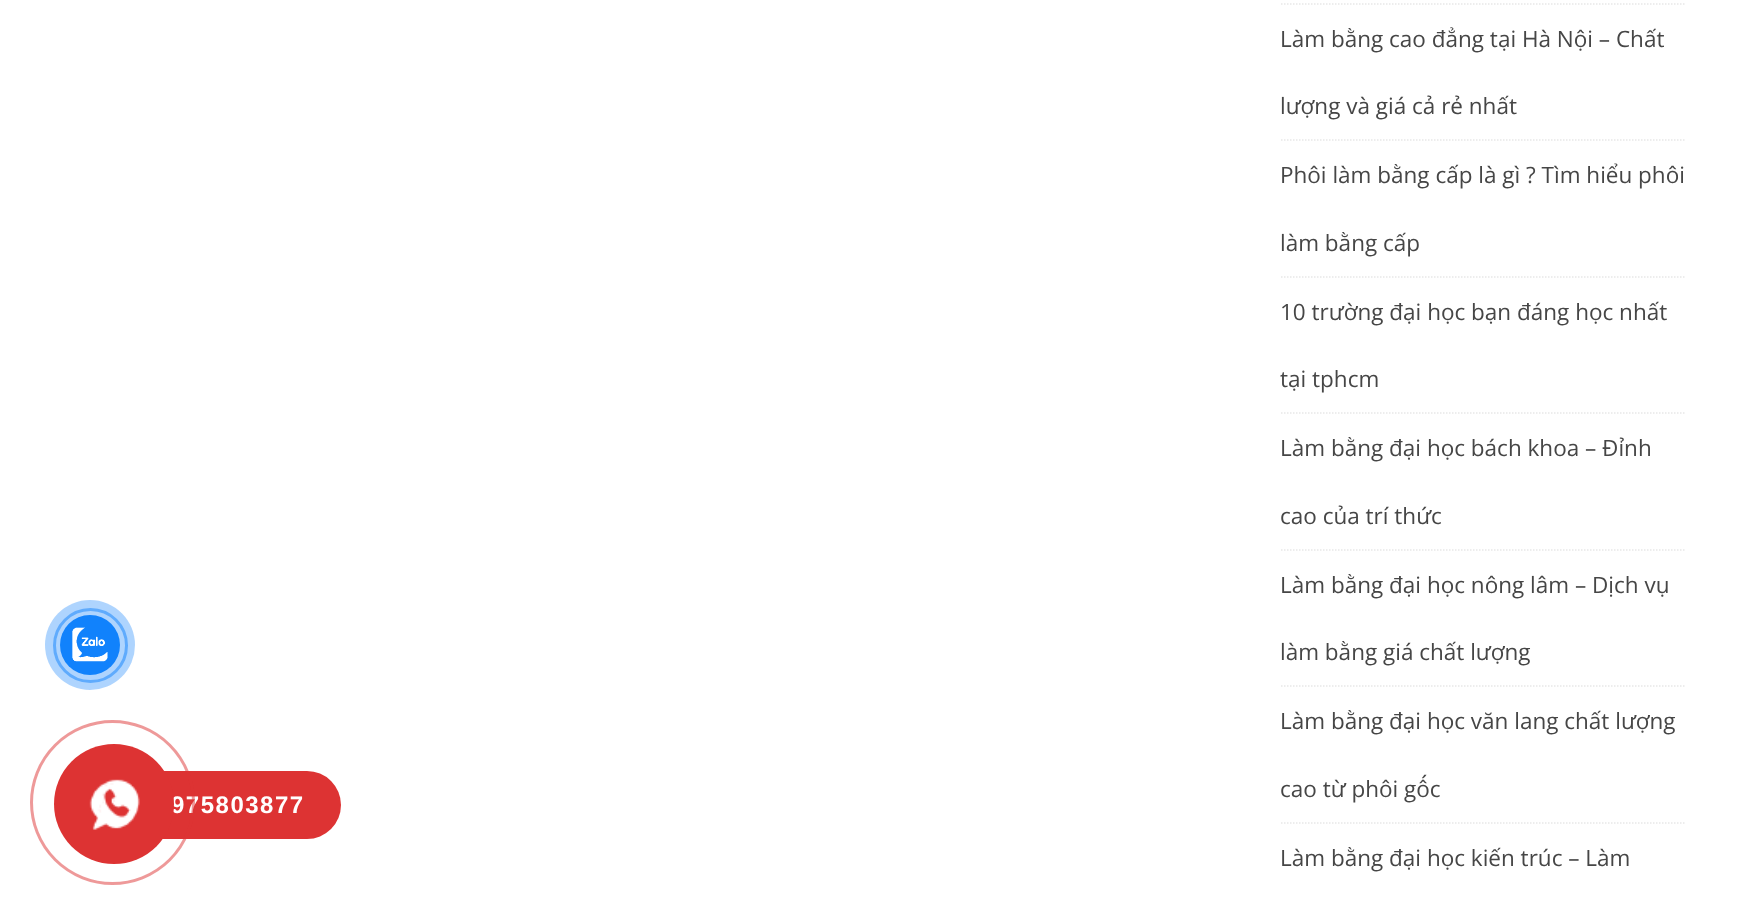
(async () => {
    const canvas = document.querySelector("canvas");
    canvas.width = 1750;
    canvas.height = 915;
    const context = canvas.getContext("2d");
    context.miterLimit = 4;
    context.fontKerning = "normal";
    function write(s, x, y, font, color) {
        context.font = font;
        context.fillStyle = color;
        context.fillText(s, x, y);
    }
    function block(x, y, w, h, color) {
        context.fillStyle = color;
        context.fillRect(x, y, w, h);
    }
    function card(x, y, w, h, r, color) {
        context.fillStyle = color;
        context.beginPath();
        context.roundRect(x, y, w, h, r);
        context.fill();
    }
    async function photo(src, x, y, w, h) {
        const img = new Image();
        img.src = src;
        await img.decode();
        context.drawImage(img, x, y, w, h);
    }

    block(0, 0, 1750, 915, "rgb(255, 255, 255)");
    context.beginPath();
    context.arc(90.5, 645.5, 36, 0, Math.PI * 2);
    context.strokeStyle = "rgb(136, 193, 254)";
    context.lineWidth = 3;
    context.stroke();
    context.fillStyle = "rgba(17, 130, 252, 0.34)";
    context.beginPath();
    context.arc(90, 645, 45, 0, Math.PI * 2);
    context.fill();
    context.fillStyle = "rgb(17, 130, 252)";
    context.beginPath();
    context.arc(90, 645, 30, 0, Math.PI * 2);
    context.fill();
    await photo("media/1.png", 72, 627, 36, 35);
    context.beginPath();
    context.moveTo(1281, 4);
    context.lineTo(1686, 4);
    context.strokeStyle = "rgb(232, 232, 232)";
    context.lineWidth = 1.5;
    context.setLineDash([1.5, 1.5]);
    context.stroke();
    context.beginPath();
    context.moveTo(1281, 140);
    context.lineTo(1686, 140);
    context.stroke();
    write("Làm bằng cao đẳng tại Hà Nội – Chất", 1280, 47, "22.5px Open Sans", "rgb(70, 70, 70)");
    write("lượng và giá cả rẻ nhất", 1280, 114, "22.5px Open Sans", "rgb(70, 70, 70)");
    context.beginPath();
    context.moveTo(1281, 277);
    context.lineTo(1686, 277);
    context.stroke();
    write("Phôi làm bằng cấp là gì ? Tìm hiểu phôi", 1280, 183, "22.5px Open Sans", "rgb(70, 70, 70)");
    write("làm bằng cấp", 1280, 251, "22.5px Open Sans", "rgb(70, 70, 70)");
    context.beginPath();
    context.moveTo(1281, 413);
    context.lineTo(1686, 413);
    context.stroke();
    write("10 trường đại học bạn đáng học nhất", 1280, 320, "22.5px Open Sans", "rgb(70, 70, 70)");
    write("tại tphcm", 1280, 387, "22.5px Open Sans", "rgb(70, 70, 70)");
    context.beginPath();
    context.moveTo(1281, 550);
    context.lineTo(1686, 550);
    context.stroke();
    write("Làm bằng đại học bách khoa – Đỉnh", 1280, 456, "22.5px Open Sans", "rgb(70, 70, 70)");
    write("cao của trí thức", 1280, 524, "22.5px Open Sans", "rgb(70, 70, 70)");
    context.beginPath();
    context.moveTo(1281, 686);
    context.lineTo(1686, 686);
    context.stroke();
    write("Làm bằng đại học nông lâm – Dịch vụ", 1280, 593, "22.5px Open Sans", "rgb(70, 70, 70)");
    write("làm bằng giá chất lượng", 1280, 660, "22.5px Open Sans", "rgb(70, 70, 70)");
    context.beginPath();
    context.moveTo(1281, 823);
    context.lineTo(1686, 823);
    context.stroke();
    write("Làm bằng đại học văn lang chất lượng", 1280, 729, "22.5px Open Sans", "rgb(70, 70, 70)");
    write("cao từ phôi gốc", 1280, 797, "22.5px Open Sans", "rgb(70, 70, 70)");
    write("Làm bằng đại học kiến trúc – Làm", 1280, 866, "22.5px Open Sans", "rgb(70, 70, 70)");
    card(93, 771, 248, 68, 34, "rgb(221, 51, 51)");
    context.letterSpacing = "1.5px";
    write("975803877", 171, 813, "bold 24px Liberation Sans", "rgb(255, 255, 255)");
    context.beginPath();
    context.arc(112.5, 802.5, 81, 0, Math.PI * 2);
    context.strokeStyle = "rgba(221, 51, 51, 0.5)";
    context.lineWidth = 3;
    context.setLineDash([]);
    context.stroke();
    context.fillStyle = "rgb(221, 51, 51)";
    context.beginPath();
    context.arc(114, 804, 60, 0, Math.PI * 2);
    context.fill();
    await photo("media/2.png", 89, 779, 51, 51);
})();
